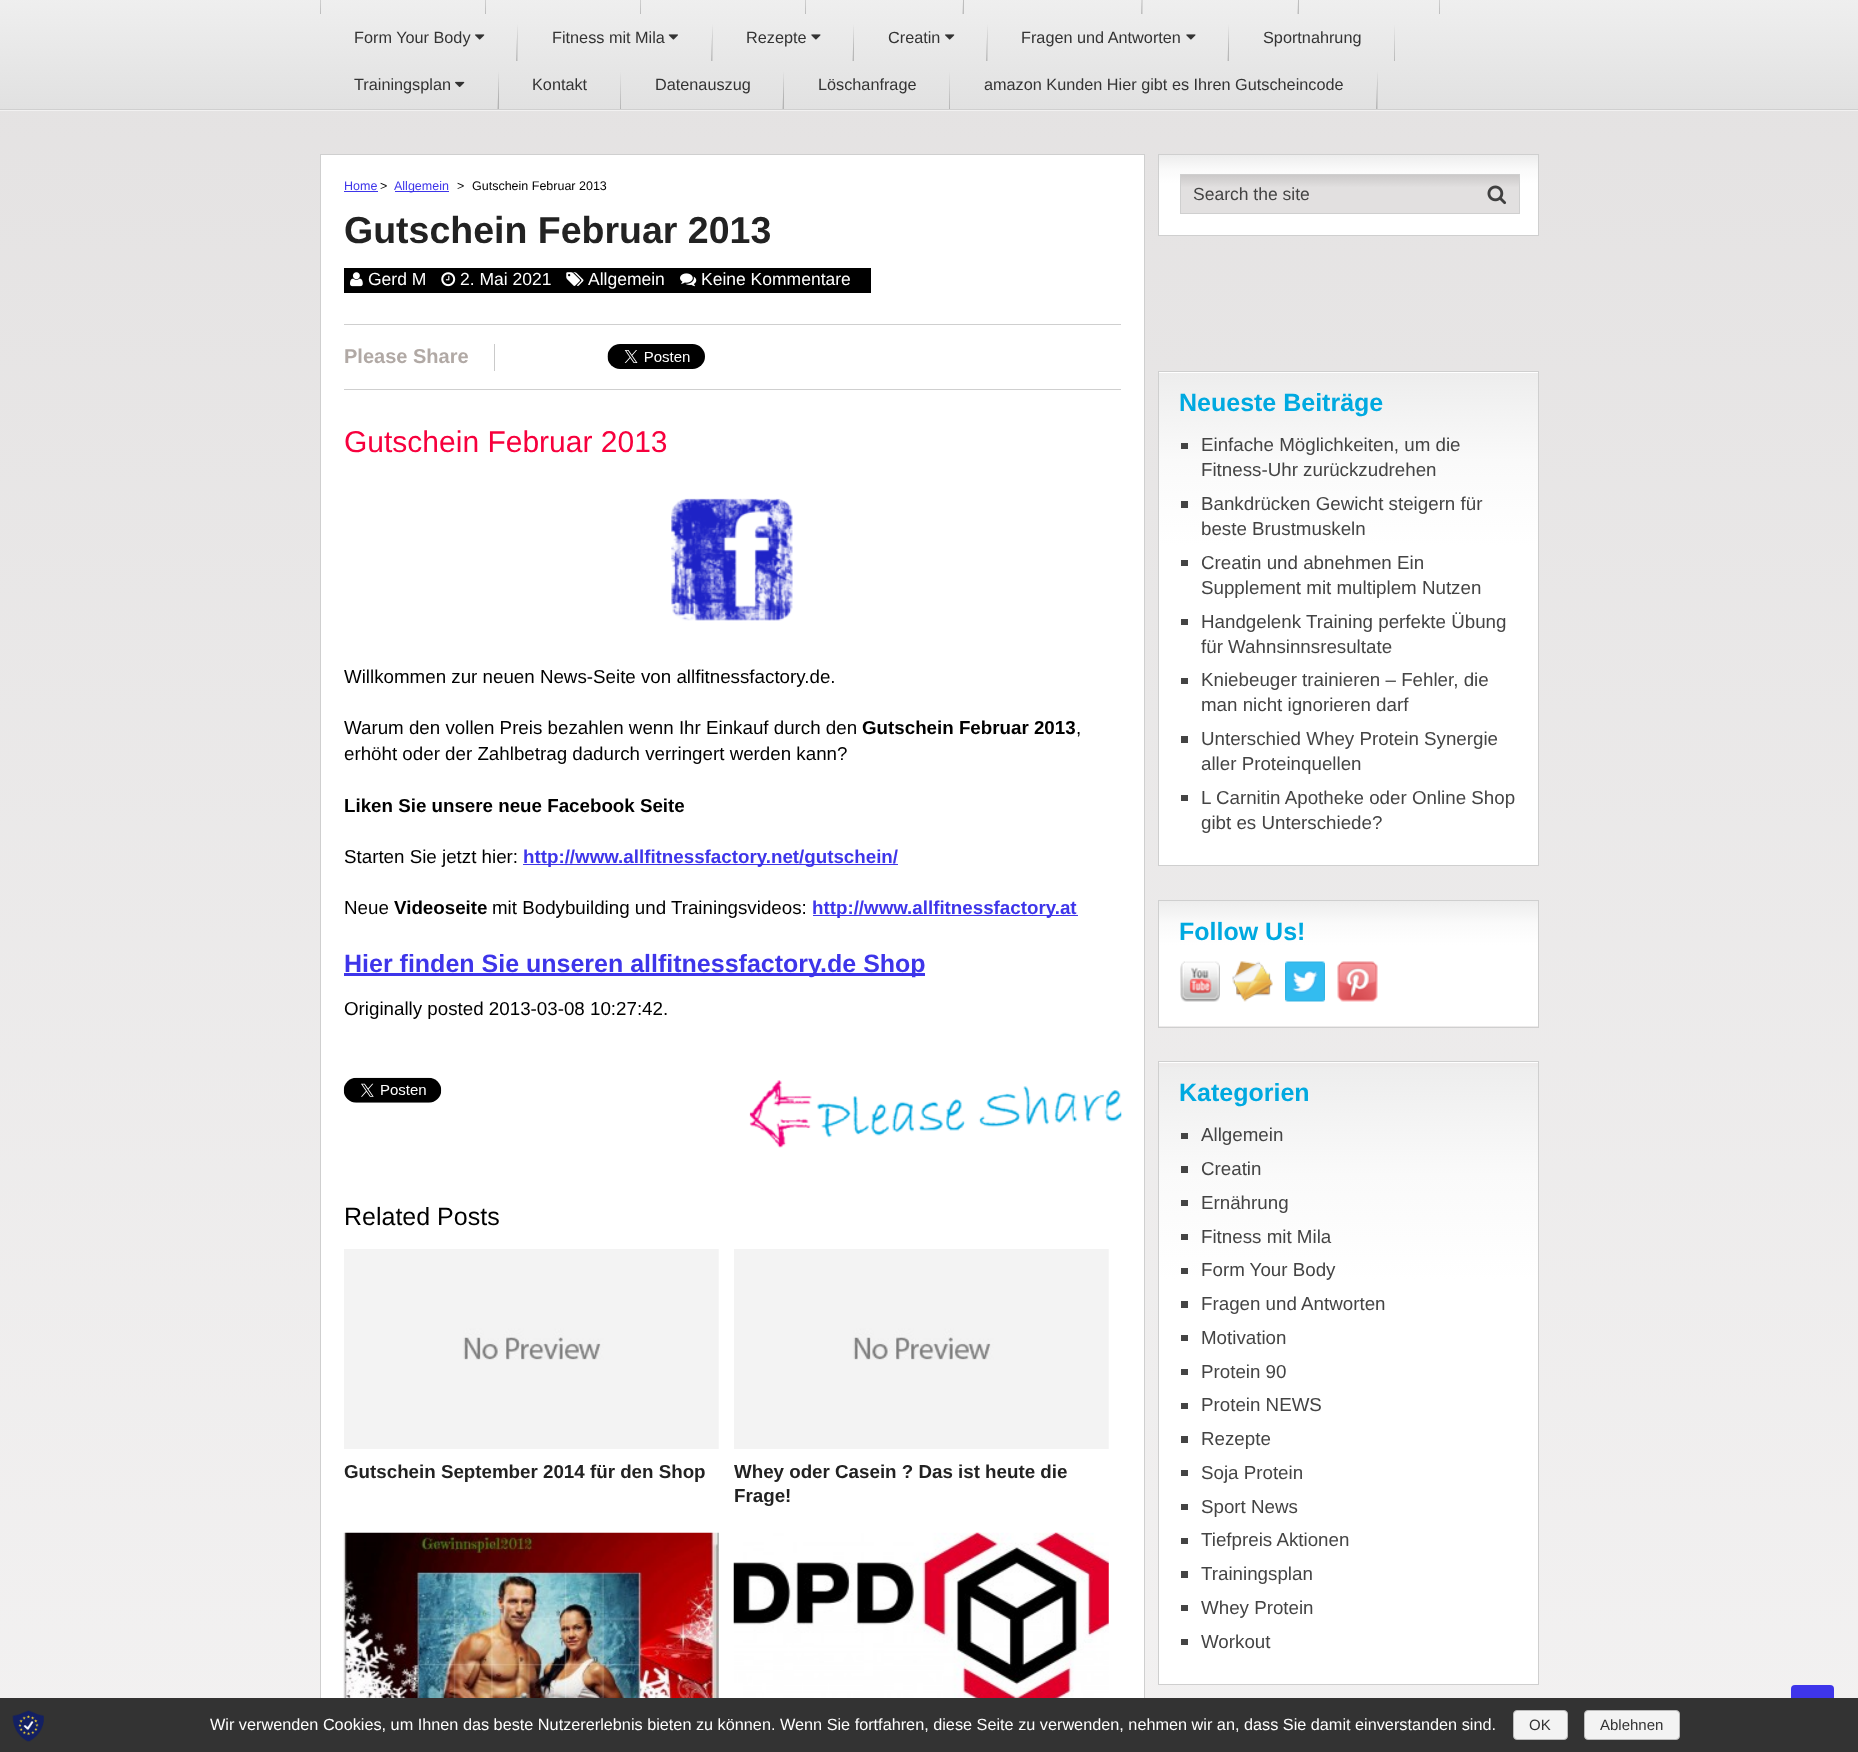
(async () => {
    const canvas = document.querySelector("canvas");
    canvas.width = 1858;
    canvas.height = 1752;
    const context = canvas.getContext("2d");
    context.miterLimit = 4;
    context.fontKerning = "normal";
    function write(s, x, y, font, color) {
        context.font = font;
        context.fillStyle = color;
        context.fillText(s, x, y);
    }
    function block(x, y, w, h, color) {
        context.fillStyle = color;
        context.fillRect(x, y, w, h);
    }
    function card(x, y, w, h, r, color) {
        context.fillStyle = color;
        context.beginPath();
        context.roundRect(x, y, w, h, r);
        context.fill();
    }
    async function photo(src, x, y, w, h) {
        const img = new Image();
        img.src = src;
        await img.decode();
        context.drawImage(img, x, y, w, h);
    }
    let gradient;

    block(0, 0, 1858, 1752, "rgb(255, 255, 255)");
    gradient = context.createLinearGradient(929, -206, 929, 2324);
    gradient.addColorStop(0, "rgb(226, 224, 224)");
    gradient.addColorStop(1, "rgb(247, 246, 246)");
    context.fillStyle = gradient;
    context.fillRect(0, 111, 1858, 1587);
    gradient = context.createLinearGradient(929, -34, 929, 109);
    gradient.addColorStop(0, "rgb(243, 243, 243)");
    gradient.addColorStop(1, "rgb(225, 225, 225)");
    context.fillStyle = gradient;
    context.fillRect(0, 0, 1858, 109);
    block(0, 109, 1858, 1, "rgb(207, 207, 207)");
    context.fillStyle = "rgb(190, 190, 190)";
    context.beginPath();
    context.moveTo(321, 14);
    context.lineTo(320, 14);
    context.lineTo(321, -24);
    context.closePath();
    context.fill();
    context.beginPath();
    context.moveTo(486, 14);
    context.lineTo(485, 14);
    context.lineTo(486, -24);
    context.closePath();
    context.fill();
    context.beginPath();
    context.moveTo(641, 14);
    context.lineTo(640, 14);
    context.lineTo(641, -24);
    context.closePath();
    context.fill();
    context.beginPath();
    context.moveTo(806, 14);
    context.lineTo(805, 14);
    context.lineTo(806, -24);
    context.closePath();
    context.fill();
    context.beginPath();
    context.moveTo(964, 14);
    context.lineTo(962.5, 14);
    context.lineTo(964, -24);
    context.closePath();
    context.fill();
    context.beginPath();
    context.moveTo(1142.5, 14);
    context.lineTo(1141, 14);
    context.lineTo(1142.5, -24);
    context.closePath();
    context.fill();
    context.beginPath();
    context.moveTo(1299, 14);
    context.lineTo(1297.5, 14);
    context.lineTo(1299, -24);
    context.closePath();
    context.fill();
    context.beginPath();
    context.moveTo(1440, 14);
    context.lineTo(1439, 14);
    context.lineTo(1440, -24);
    context.closePath();
    context.fill();
    write("Form Your Body", 354, 43, "16.25px Liberation Sans", "rgb(51, 51, 51)");
    await photo("media/1.png", 475, 34, 10, 6);
    context.fillStyle = "rgba(0, 0, 0, 0.2)";
    context.beginPath();
    context.moveTo(517.5, 61);
    context.lineTo(516, 61);
    context.lineTo(517.5, 24);
    context.closePath();
    context.fill();
    write("Fitness mit Mila", 552, 43, "16.25px Liberation Sans", "rgb(51, 51, 51)");
    await photo("media/2.png", 668, 34, 10, 6);
    context.fillStyle = "rgba(0, 0, 0, 0.2)";
    context.beginPath();
    context.moveTo(712.5, 61);
    context.lineTo(711, 61);
    context.lineTo(712.5, 24);
    context.closePath();
    context.fill();
    write("Rezepte", 746, 43, "16.25px Liberation Sans", "rgb(51, 51, 51)");
    await photo("media/3.png", 811, 34, 10, 6);
    context.fillStyle = "rgba(0, 0, 0, 0.2)";
    context.beginPath();
    context.moveTo(854, 61);
    context.lineTo(852.5, 61);
    context.lineTo(854, 24);
    context.closePath();
    context.fill();
    write("Creatin", 888, 43, "16.25px Liberation Sans", "rgb(51, 51, 51)");
    await photo("media/1.png", 945, 34, 10, 6);
    context.fillStyle = "rgba(0, 0, 0, 0.2)";
    context.beginPath();
    context.moveTo(987.5, 61);
    context.lineTo(986, 61);
    context.lineTo(987.5, 24);
    context.closePath();
    context.fill();
    write("Fragen und Antworten", 1021, 43, "16.25px Liberation Sans", "rgb(51, 51, 51)");
    await photo("media/3.png", 1186, 34, 10, 6);
    context.fillStyle = "rgba(0, 0, 0, 0.2)";
    context.beginPath();
    context.moveTo(1229, 61);
    context.lineTo(1227.5, 61);
    context.lineTo(1229, 24);
    context.closePath();
    context.fill();
    write("Sportnahrung", 1263, 43, "16.25px Liberation Sans", "rgb(51, 51, 51)");
    context.fillStyle = "rgb(186, 186, 186)";
    context.beginPath();
    context.moveTo(1395, 61);
    context.lineTo(1394, 61);
    context.lineTo(1395, 24);
    context.closePath();
    context.fill();
    write("Trainingsplan", 354, 90, "16.25px Liberation Sans", "rgb(51, 51, 51)");
    await photo("media/4.png", 455, 81, 10, 6);
    context.fillStyle = "rgba(0, 0, 0, 0.2)";
    context.beginPath();
    context.moveTo(499, 109);
    context.lineTo(497.5, 109);
    context.lineTo(499, 71);
    context.closePath();
    context.fill();
    write("Kontakt", 532, 90, "16.25px Liberation Sans", "rgb(51, 51, 51)");
    context.fillStyle = "rgb(181, 181, 181)";
    context.beginPath();
    context.moveTo(621, 109);
    context.lineTo(620, 109);
    context.lineTo(621, 71);
    context.closePath();
    context.fill();
    write("Datenauszug", 655, 90, "16.25px Liberation Sans", "rgb(51, 51, 51)");
    context.fillStyle = "rgba(0, 0, 0, 0.2)";
    context.beginPath();
    context.moveTo(784, 109);
    context.lineTo(782.5, 109);
    context.lineTo(784, 71);
    context.closePath();
    context.fill();
    write("Löschanfrage", 818, 90, "16.25px Liberation Sans", "rgb(51, 51, 51)");
    context.fillStyle = "rgb(181, 181, 181)";
    context.beginPath();
    context.moveTo(950, 109);
    context.lineTo(949, 109);
    context.lineTo(950, 71);
    context.closePath();
    context.fill();
    write("amazon Kunden Hier gibt es Ihren Gutscheincode", 984, 90, "16.25px Liberation Sans", "rgb(51, 51, 51)");
    context.fillStyle = "rgba(0, 0, 0, 0.2)";
    context.beginPath();
    context.moveTo(1377.5, 109);
    context.lineTo(1376, 109);
    context.lineTo(1377.5, 71);
    context.closePath();
    context.fill();
    block(0, 110, 1858, 1, "rgb(242, 241, 241)");
    block(321, 155, 823, 1543, "rgb(255, 255, 255)");
    context.strokeStyle = "rgb(207, 207, 207)";
    context.strokeRect(320.5, 154.5, 824, 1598);
    write("Home", 344, 190, "12.5px Liberation Sans", "rgb(62, 53, 234)");
    block(344, 191, 34, 1, "rgb(62, 53, 234)");
    write(">", 380, 190, "12.5px Liberation Sans", "rgb(0, 0, 0)");
    block(395, 191, 54, 1, "rgb(62, 53, 234)");
    write("Allgemein", 394, 190, "12.5px Liberation Sans", "rgb(62, 53, 234)");
    write(">", 457, 190, "12.5px Liberation Sans", "rgb(0, 0, 0)");
    write("Gutschein Februar 2013", 472, 190, "12.5px Liberation Sans", "rgb(0, 0, 0)");
    write("Gutschein Februar 2013", 344, 243, "bold 37.5px Liberation Sans", "rgb(34, 34, 34)");
    block(344, 268, 527, 25, "rgb(0, 0, 0)");
    await photo("media/5.png", 350, 272, 13, 15);
    write("Gerd M", 368, 285, "17.5px Liberation Sans", "rgb(255, 255, 255)");
    await photo("media/6.png", 441, 272, 15, 15);
    write("2. Mai 2021", 460, 285, "17.5px Liberation Sans", "rgb(255, 255, 255)");
    await photo("media/7.png", 566, 272, 18, 14);
    write("Allgemein", 588, 285, "17.5px Liberation Sans", "rgb(255, 255, 255)");
    await photo("media/8.png", 680, 273, 17, 14);
    write("Keine Kommentare", 701, 285, "17.5px Liberation Sans", "rgb(255, 255, 255)");
    block(344, 324, 777, 1, "rgb(207, 207, 207)");
    block(344, 389, 777, 1, "rgb(207, 207, 207)");
    block(494, 344, 1, 27, "rgb(202, 202, 202)");
    write("Please Share", 344, 363, "bold 20px Liberation Sans", "rgb(177, 169, 165)");
    await photo("media/9.png", 607, 344, 98, 25);
    write("Gutschein Februar 2013", 344, 452, "30px Liberation Sans", "rgb(247, 0, 61)");
    await photo("media/10.png", 671, 498, 122, 123);
    write("Willkommen zur neuen News-Seite von allfitnessfactory.de.", 344, 683, "18.75px Liberation Sans", "rgb(0, 0, 0)");
    write("Warum den vollen Preis bezahlen wenn Ihr Einkauf durch den", 344, 734, "18.75px Liberation Sans", "rgb(0, 0, 0)");
    write("Gutschein Februar 2013", 862, 734, "bold 18.75px Liberation Sans", "rgb(0, 0, 0)");
    write(",", 1076, 734, "18.75px Liberation Sans", "rgb(0, 0, 0)");
    write("erhöht oder der Zahlbetrag dadurch verringert werden kann?", 344, 760, "18.75px Liberation Sans", "rgb(0, 0, 0)");
    write("Liken Sie unsere neue Facebook Seite", 344, 812, "bold 18.75px Liberation Sans", "rgb(0, 0, 0)");
    write("Starten Sie jetzt hier:", 344, 863, "18.75px Liberation Sans", "rgb(0, 0, 0)");
    block(523, 864, 375, 1, "rgb(62, 53, 234)");
    write("http://www.allfitnessfactory.net/gutschein/", 523, 863, "bold 18.75px Liberation Sans", "rgb(62, 53, 234)");
    write("Neue", 344, 914, "18.75px Liberation Sans", "rgb(0, 0, 0)");
    write("Videoseite", 394, 914, "bold 18.75px Liberation Sans", "rgb(0, 0, 0)");
    write("mit Bodybuilding und Trainingsvideos:", 492, 914, "18.75px Liberation Sans", "rgb(0, 0, 0)");
    block(813, 915, 265, 1, "rgb(62, 53, 234)");
    write("http://www.allfitnessfactory.at", 812, 914, "bold 18.75px Liberation Sans", "rgb(62, 53, 234)");
    block(344, 973, 581, 3, "rgb(62, 53, 234)");
    write("Hier finden Sie unseren allfitnessfactory.de Shop", 344, 972, "bold 25px Liberation Sans", "rgb(62, 53, 234)");
    write("Originally posted 2013-03-08 10:27:42.", 344, 1015, "18.75px Liberation Sans", "rgb(0, 0, 0)");
    await photo("media/11.png", 749, 1080, 373, 68);
    await photo("media/12.png", 343, 1077, 99, 26);
    write("Related Posts", 344, 1225, "25px Liberation Sans", "rgb(0, 0, 0)");
    await photo("media/13.png", 344, 1249, 375, 200);
    write("Gutschein September 2014 für den Shop", 344, 1478, "bold 18.75px Liberation Sans", "rgb(34, 34, 34)");
    await photo("media/14.png", 734, 1249, 375, 200);
    write("Whey oder Casein ? Das ist heute die", 734, 1478, "bold 18.75px Liberation Sans", "rgb(34, 34, 34)");
    write("Frage!", 734, 1502, "bold 18.75px Liberation Sans", "rgb(34, 34, 34)");
    await photo("media/15.png", 343, 1532, 376, 166);
    await photo("media/16.png", 733, 1532, 376, 166);
    gradient = context.createLinearGradient(1348, 155, 1348, 235);
    gradient.addColorStop(0, "rgb(237, 237, 237)");
    gradient.addColorStop(0.18, "rgb(250, 250, 250)");
    gradient.addColorStop(0.35, "rgb(255, 255, 255)");
    gradient.addColorStop(1, "rgb(255, 255, 255)");
    context.fillStyle = gradient;
    context.fillRect(1159, 155, 379, 80);
    context.strokeRect(1158.5, 154.5, 380, 81);
    gradient = context.createLinearGradient(1350, 175, 1350, 213);
    gradient.addColorStop(0, "rgb(203, 201, 201)");
    gradient.addColorStop(0.33, "rgb(226, 224, 224)");
    gradient.addColorStop(1, "rgb(226, 224, 224)");
    context.fillStyle = gradient;
    context.fillRect(1181, 175, 338, 38);
    context.strokeRect(1180.5, 174.5, 339, 39);
    write("Search the site", 1193, 200, "17.5px Liberation Sans", "rgb(68, 68, 68)");
    await photo("media/17.png", 1487, 185, 20, 20);
    gradient = context.createLinearGradient(1348, -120, 1348, 373);
    gradient.addColorStop(0, "rgb(237, 237, 237)");
    gradient.addColorStop(0.18, "rgb(250, 250, 250)");
    gradient.addColorStop(0.35, "rgb(255, 255, 255)");
    gradient.addColorStop(1, "rgb(255, 255, 255)");
    context.fillStyle = gradient;
    context.fillRect(1158, 372, 381, 1);
    gradient = context.createLinearGradient(1348, 373, 1348, 865);
    gradient.addColorStop(0, "rgb(237, 237, 237)");
    gradient.addColorStop(0.18, "rgb(250, 250, 250)");
    gradient.addColorStop(0.35, "rgb(255, 255, 255)");
    gradient.addColorStop(1, "rgb(255, 255, 255)");
    context.fillStyle = gradient;
    context.fillRect(1159, 373, 379, 492);
    context.strokeRect(1158.5, 371.5, 380, 494);
    write("Neueste Beiträge", 1179, 411, "bold 25px Liberation Sans", "rgb(0, 169, 224)");
    block(1181, 443, 7, 6, "rgb(68, 68, 68)");
    write("Einfache Möglichkeiten, um die", 1201, 451, "18.75px Liberation Sans", "rgb(68, 68, 68)");
    write("Fitness-Uhr zurückzudrehen", 1201, 476, "18.75px Liberation Sans", "rgb(68, 68, 68)");
    block(1181, 501, 7, 7, "rgb(68, 68, 68)");
    write("Bankdrücken Gewicht steigern für", 1201, 510, "18.75px Liberation Sans", "rgb(68, 68, 68)");
    write("beste Brustmuskeln", 1201, 535, "18.75px Liberation Sans", "rgb(68, 68, 68)");
    block(1181, 560, 7, 6, "rgb(68, 68, 68)");
    write("Creatin und abnehmen Ein", 1201, 569, "18.75px Liberation Sans", "rgb(68, 68, 68)");
    write("Supplement mit multiplem Nutzen", 1201, 594, "18.75px Liberation Sans", "rgb(68, 68, 68)");
    block(1181, 619, 7, 6, "rgb(68, 68, 68)");
    write("Handgelenk Training perfekte Übung", 1201, 628, "18.75px Liberation Sans", "rgb(68, 68, 68)");
    write("für Wahnsinnsresultate", 1201, 653, "18.75px Liberation Sans", "rgb(68, 68, 68)");
    block(1181, 678, 7, 6, "rgb(68, 68, 68)");
    write("Kniebeuger trainieren – Fehler, die", 1201, 686, "18.75px Liberation Sans", "rgb(68, 68, 68)");
    write("man nicht ignorieren darf", 1201, 711, "18.75px Liberation Sans", "rgb(68, 68, 68)");
    block(1181, 736, 7, 7, "rgb(68, 68, 68)");
    write("Unterschied Whey Protein Synergie", 1201, 745, "18.75px Liberation Sans", "rgb(68, 68, 68)");
    write("aller Proteinquellen", 1201, 770, "18.75px Liberation Sans", "rgb(68, 68, 68)");
    block(1181, 795, 7, 6, "rgb(68, 68, 68)");
    write("L Carnitin Apotheke oder Online Shop", 1201, 804, "18.75px Liberation Sans", "rgb(68, 68, 68)");
    write("gibt es Unterschiede?", 1201, 829, "18.75px Liberation Sans", "rgb(68, 68, 68)");
    gradient = context.createLinearGradient(1348, 901, 1348, 1026);
    gradient.addColorStop(0, "rgb(237, 237, 237)");
    gradient.addColorStop(0.18, "rgb(250, 250, 250)");
    gradient.addColorStop(0.35, "rgb(255, 255, 255)");
    gradient.addColorStop(1, "rgb(255, 255, 255)");
    context.fillStyle = gradient;
    context.fillRect(1159, 901, 379, 125);
    context.strokeRect(1158.5, 900.5, 380, 127);
    write("Follow Us!", 1179, 940, "bold 25px Liberation Sans", "rgb(0, 169, 224)");
    await photo("media/18.png", 1180, 961, 40, 41);
    await photo("media/19.png", 1232, 961, 41, 41);
    await photo("media/20.png", 1285, 961, 40, 41);
    await photo("media/21.png", 1337, 961, 41, 41);
    gradient = context.createLinearGradient(1348, 441, 1348, 1063);
    gradient.addColorStop(0, "rgb(237, 237, 237)");
    gradient.addColorStop(0.18, "rgb(250, 250, 250)");
    gradient.addColorStop(0.35, "rgb(255, 255, 255)");
    gradient.addColorStop(1, "rgb(255, 255, 255)");
    context.fillStyle = gradient;
    context.fillRect(1158, 1062, 381, 1);
    gradient = context.createLinearGradient(1348, 1063, 1348, 1684);
    gradient.addColorStop(0, "rgb(237, 237, 237)");
    gradient.addColorStop(0.18, "rgb(250, 250, 250)");
    gradient.addColorStop(0.35, "rgb(255, 255, 255)");
    gradient.addColorStop(1, "rgb(255, 255, 255)");
    context.fillStyle = gradient;
    context.fillRect(1159, 1067, 379, 617);
    context.strokeRect(1158.5, 1061.5, 380, 623);
    write("Kategorien", 1179, 1101, "bold 25px Liberation Sans", "rgb(0, 169, 224)");
    block(1181, 1133, 7, 6, "rgb(68, 68, 68)");
    write("Allgemein", 1201, 1141, "18.75px Liberation Sans", "rgb(68, 68, 68)");
    block(1181, 1166, 7, 7, "rgb(68, 68, 68)");
    write("Creatin", 1201, 1175, "18.75px Liberation Sans", "rgb(68, 68, 68)");
    block(1181, 1200, 7, 6, "rgb(68, 68, 68)");
    write("Ernährung", 1201, 1209, "18.75px Liberation Sans", "rgb(68, 68, 68)");
    block(1181, 1234, 7, 6, "rgb(68, 68, 68)");
    write("Fitness mit Mila", 1201, 1243, "18.75px Liberation Sans", "rgb(68, 68, 68)");
    block(1181, 1268, 7, 6, "rgb(68, 68, 68)");
    write("Form Your Body", 1201, 1276, "18.75px Liberation Sans", "rgb(68, 68, 68)");
    block(1181, 1301, 7, 7, "rgb(68, 68, 68)");
    write("Fragen und Antworten", 1201, 1310, "18.75px Liberation Sans", "rgb(68, 68, 68)");
    block(1181, 1335, 7, 6, "rgb(68, 68, 68)");
    write("Motivation", 1201, 1344, "18.75px Liberation Sans", "rgb(68, 68, 68)");
    block(1181, 1369, 7, 6, "rgb(68, 68, 68)");
    write("Protein 90", 1201, 1378, "18.75px Liberation Sans", "rgb(68, 68, 68)");
    block(1181, 1403, 7, 6, "rgb(68, 68, 68)");
    write("Protein NEWS", 1201, 1411, "18.75px Liberation Sans", "rgb(68, 68, 68)");
    block(1181, 1436, 7, 7, "rgb(68, 68, 68)");
    write("Rezepte", 1201, 1445, "18.75px Liberation Sans", "rgb(68, 68, 68)");
    block(1181, 1470, 7, 6, "rgb(68, 68, 68)");
    write("Soja Protein", 1201, 1479, "18.75px Liberation Sans", "rgb(68, 68, 68)");
    block(1181, 1504, 7, 6, "rgb(68, 68, 68)");
    write("Sport News", 1201, 1513, "18.75px Liberation Sans", "rgb(68, 68, 68)");
    block(1181, 1538, 7, 6, "rgb(68, 68, 68)");
    write("Tiefpreis Aktionen", 1201, 1546, "18.75px Liberation Sans", "rgb(68, 68, 68)");
    block(1181, 1571, 7, 7, "rgb(68, 68, 68)");
    write("Trainingsplan", 1201, 1580, "18.75px Liberation Sans", "rgb(68, 68, 68)");
    block(1181, 1605, 7, 6, "rgb(68, 68, 68)");
    write("Whey Protein", 1201, 1614, "18.75px Liberation Sans", "rgb(68, 68, 68)");
    block(1181, 1639, 7, 6, "rgb(68, 68, 68)");
    write("Workout", 1201, 1648, "18.75px Liberation Sans", "rgb(68, 68, 68)");
    card(1791, 1685, 43, 43, 4, "rgb(62, 53, 234)");
    block(0, 1698, 1858, 54, "rgb(51, 51, 51)");
    await photo("media/22.png", 12, 1710, 32, 32);
    write("Wir verwenden Cookies, um Ihnen das beste Nutzererlebnis bieten zu können. Wenn Sie fortfahren, diese Seite zu verwenden, nehmen wir an, dass Sie damit einverstanden sind.", 210, 1730, "16.25px Liberation Sans", "rgb(255, 255, 255)");
    context.fillStyle = "rgb(243, 243, 243)";
    context.beginPath();
    context.roundRect(1513.5, 1710.5, 54, 29, 3.5);
    context.fill();
    context.strokeStyle = "rgb(187, 187, 187)";
    context.stroke();
    write("OK", 1529, 1730, "15px Liberation Sans", "rgb(51, 51, 51)");
    context.fillStyle = "rgb(243, 243, 243)";
    context.beginPath();
    context.roundRect(1584.5, 1710.5, 95, 29, 3.5);
    context.fill();
    context.stroke();
    write("Ablehnen", 1600, 1730, "15px Liberation Sans", "rgb(51, 51, 51)");
})();
